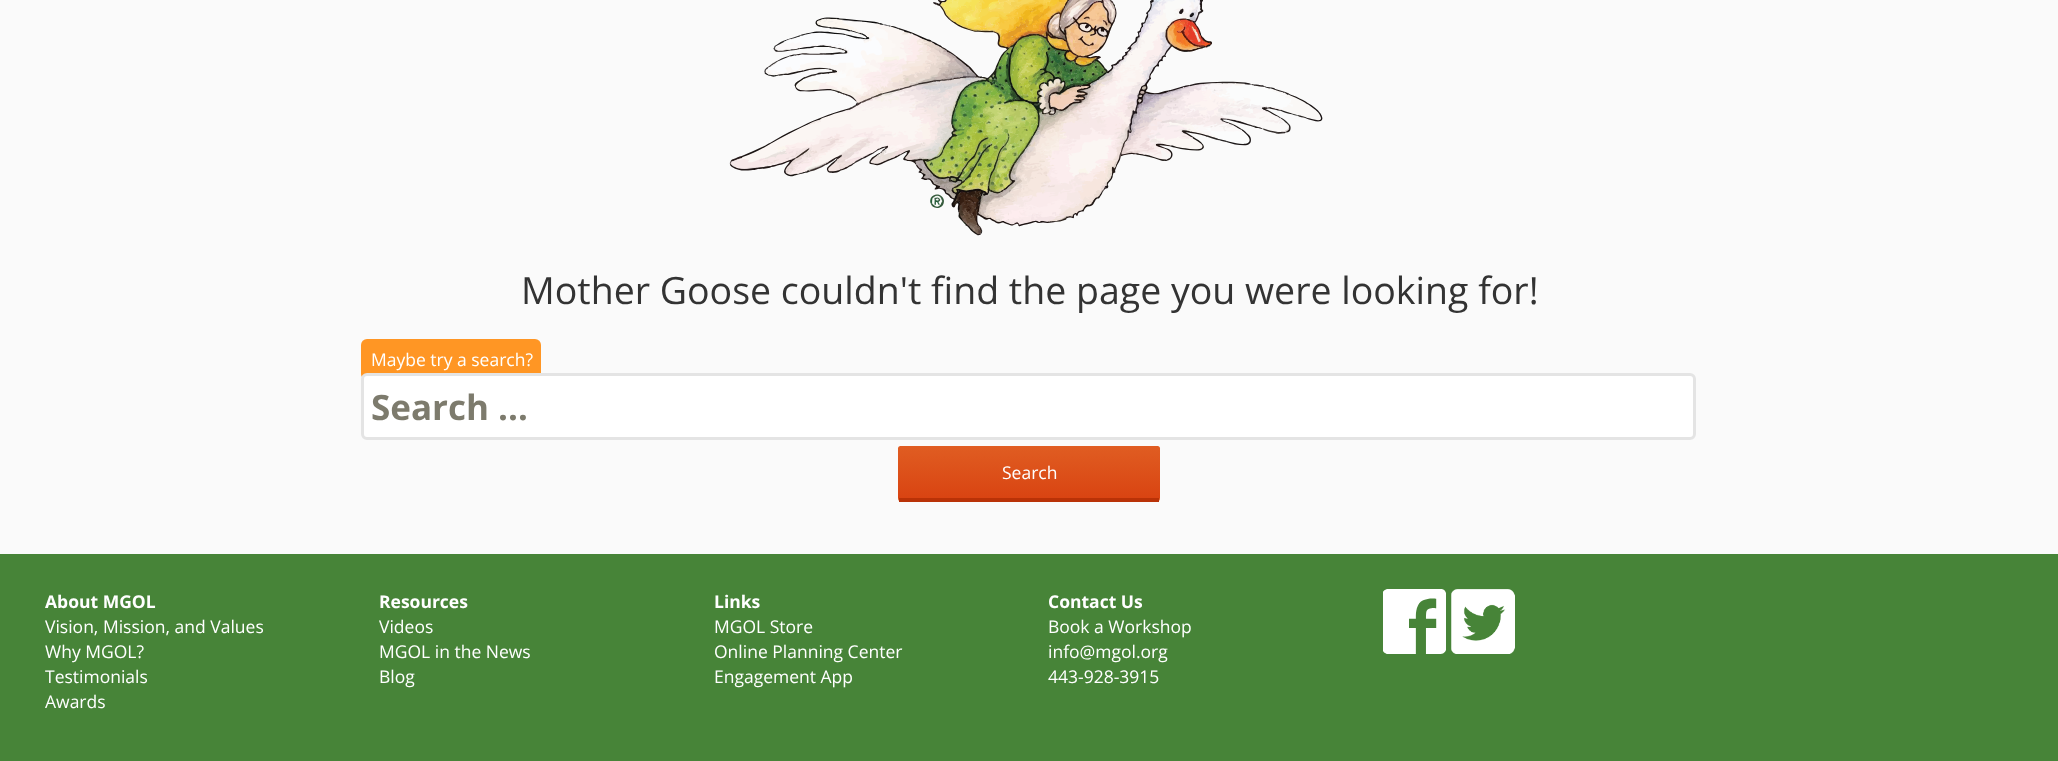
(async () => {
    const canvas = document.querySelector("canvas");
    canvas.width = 2058;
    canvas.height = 761;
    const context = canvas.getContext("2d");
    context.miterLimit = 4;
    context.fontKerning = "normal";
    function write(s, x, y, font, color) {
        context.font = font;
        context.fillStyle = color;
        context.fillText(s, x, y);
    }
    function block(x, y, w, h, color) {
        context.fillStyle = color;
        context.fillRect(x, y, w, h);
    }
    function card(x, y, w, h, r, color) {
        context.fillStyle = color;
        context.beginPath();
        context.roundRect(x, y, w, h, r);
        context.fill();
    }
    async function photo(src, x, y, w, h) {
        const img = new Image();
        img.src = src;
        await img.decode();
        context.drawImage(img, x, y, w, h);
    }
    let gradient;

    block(0, 0, 2058, 761, "rgb(250, 250, 250)");
    await photo("media/1.png", 729, 0, 594, 236);
    write("Mother Goose couldn't find the page you were looking for!", 521, 304, "37.5px Open Sans", "rgb(51, 51, 51)");
    card(361, 339, 180, 41, 6, "rgb(255, 150, 36)");
    write("Maybe try a search?", 371, 366, "17.5px Open Sans", "rgb(255, 255, 255)");
    context.beginPath();
    context.roundRect(362.5, 374.5, 1332, 64, 4.5);
    context.fill();
    context.strokeStyle = "rgb(228, 228, 228)";
    context.lineWidth = 3;
    context.stroke();
    write("Search …", 371, 420, "bold 35px Open Sans", "rgb(125, 123, 109)");
    gradient = context.createLinearGradient(1029, 446, 1029, 498);
    gradient.addColorStop(0, "rgb(224, 93, 34)");
    gradient.addColorStop(1, "rgb(217, 68, 18)");
    context.fillStyle = gradient;
    context.beginPath();
    context.roundRect(898, 446, 262, 52, [2.5, 2.5, 0, 0]);
    context.fill();
    gradient = context.createLinearGradient(1029, 498, 1029, 549);
    gradient.addColorStop(0, "rgb(224, 93, 34)");
    gradient.addColorStop(1, "rgb(217, 68, 18)");
    context.fillStyle = gradient;
    context.beginPath();
    context.roundRect(898, 498, 262, 3, [0, 0, 2.5, 2.5]);
    context.fill();
    block(899, 498, 260, 4, "rgb(185, 50, 7)");
    write("Search", 1002, 479, "17.5px Open Sans", "rgb(255, 255, 255)");
    block(0, 554, 2058, 207, "rgb(71, 132, 56)");
    write("About MGOL", 45, 608, "bold 17.5px Open Sans", "rgb(255, 255, 255)");
    write("Vision, Mission, and Values", 45, 633, "17.5px Open Sans", "rgb(255, 255, 255)");
    write("Why MGOL?", 45, 658, "17.5px Open Sans", "rgb(255, 255, 255)");
    write("Testimonials", 45, 683, "17.5px Open Sans", "rgb(255, 255, 255)");
    write("Awards", 45, 708, "17.5px Open Sans", "rgb(255, 255, 255)");
    write("Resources", 379, 608, "bold 17.5px Open Sans", "rgb(255, 255, 255)");
    write("Videos", 379, 633, "17.5px Open Sans", "rgb(255, 255, 255)");
    write("MGOL in the News", 379, 658, "17.5px Open Sans", "rgb(255, 255, 255)");
    write("Blog", 379, 683, "17.5px Open Sans", "rgb(255, 255, 255)");
    write("Links", 714, 608, "bold 17.5px Open Sans", "rgb(255, 255, 255)");
    write("MGOL Store", 714, 633, "17.5px Open Sans", "rgb(255, 255, 255)");
    write("Online Planning Center", 714, 658, "17.5px Open Sans", "rgb(255, 255, 255)");
    write("Engagement App", 714, 683, "17.5px Open Sans", "rgb(255, 255, 255)");
    write("Contact Us", 1048, 608, "bold 17.5px Open Sans", "rgb(255, 255, 255)");
    write("Book a Workshop", 1048, 633, "17.5px Open Sans", "rgb(255, 255, 255)");
    write("info@mgol.org", 1048, 658, "17.5px Open Sans", "rgb(255, 255, 255)");
    write("443-928-3915", 1048, 683, "17.5px Open Sans", "rgb(255, 255, 255)");
    await photo("media/2.png", 1383, 589, 63, 65);
    await photo("media/3.png", 1451, 589, 64, 65);
})();
